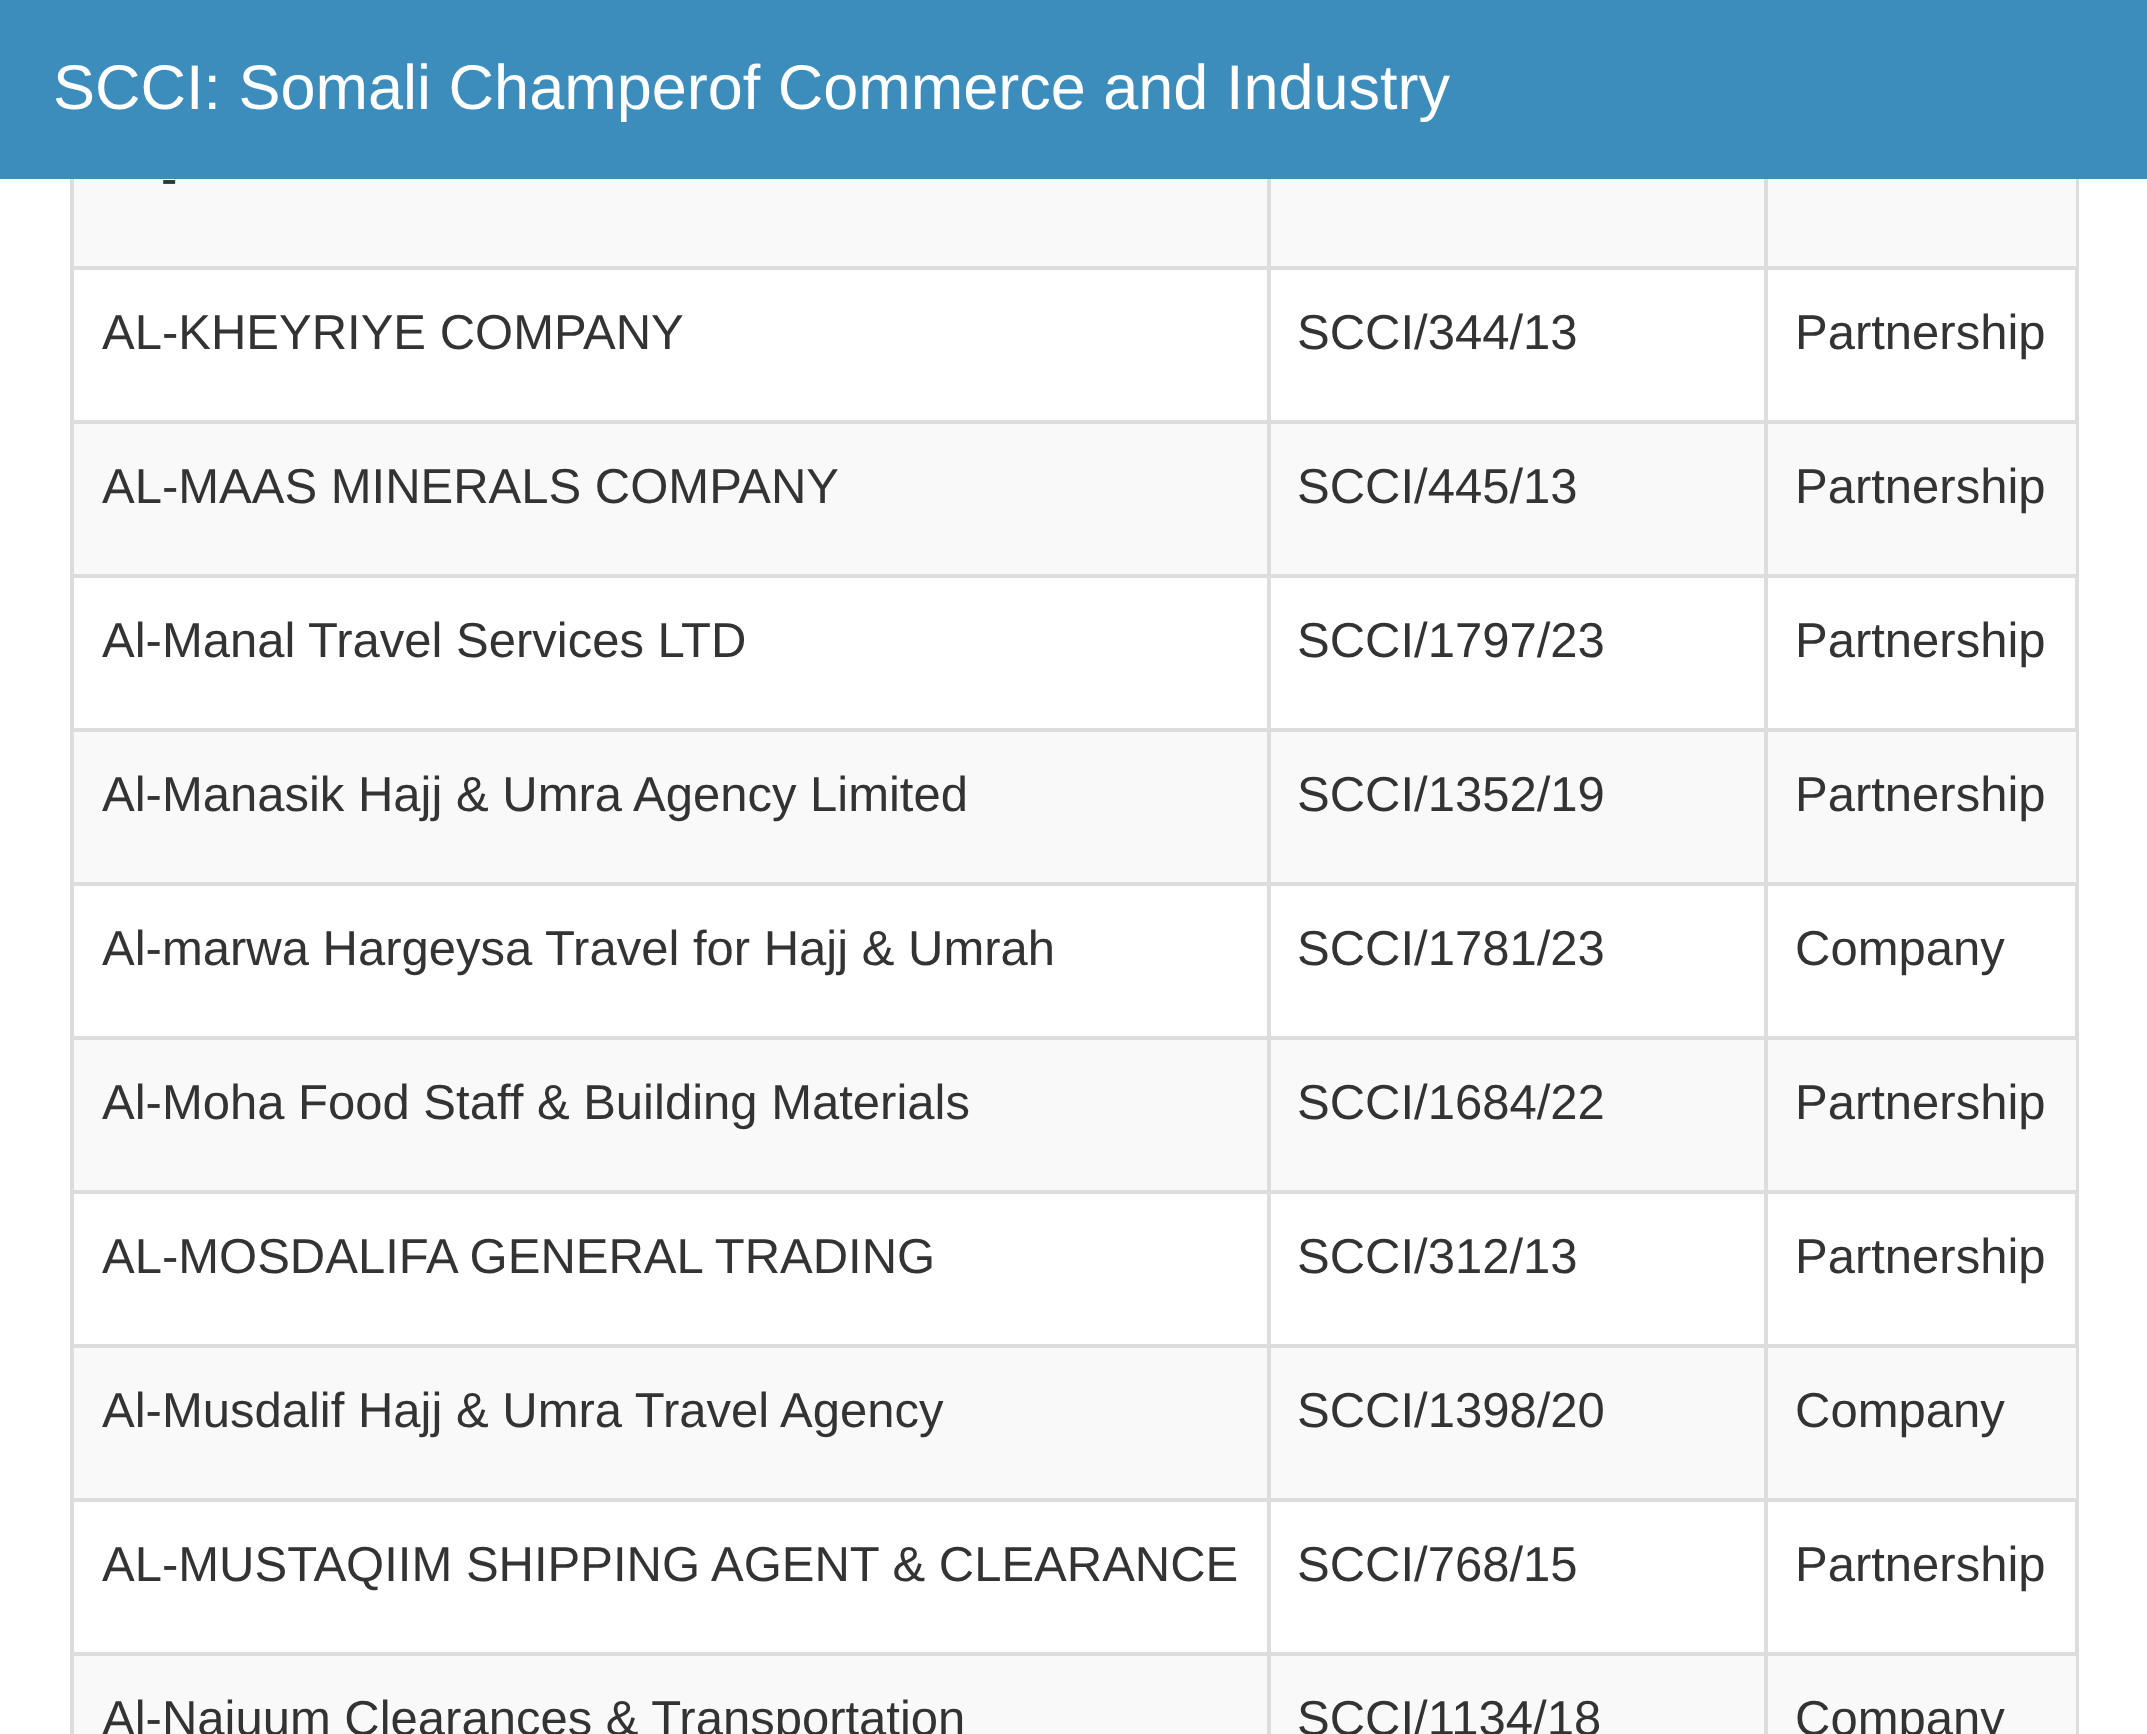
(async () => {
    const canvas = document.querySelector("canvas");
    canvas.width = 2147;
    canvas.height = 1734;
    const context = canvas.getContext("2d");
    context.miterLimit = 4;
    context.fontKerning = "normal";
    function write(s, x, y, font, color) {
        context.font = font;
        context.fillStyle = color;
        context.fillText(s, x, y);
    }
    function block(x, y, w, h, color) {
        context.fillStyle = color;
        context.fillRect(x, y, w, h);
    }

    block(0, 0, 2147, 1734, "rgb(255, 255, 255)");
    context.strokeStyle = "rgb(221, 221, 221)";
    context.lineWidth = 4;
    context.strokeRect(72, -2, 2005, 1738);
    block(0, 0, 2147, 179, "rgb(60, 141, 188)");
    write("SCCI: Somali Champerof Commerce and Industry", 53, 109, "63px Liberation Sans", "rgb(255, 255, 255)");
    block(74, 179, 2002, 87, "rgb(249, 249, 249)");
    write("-", 161, 195, "49px Liberation Sans", "rgb(51, 51, 51)");
    block(1764, 266, 312, 4, "rgb(221, 221, 221)");
    block(1764, 420, 312, 4, "rgb(221, 221, 221)");
    block(74, 424, 2002, 150, "rgb(249, 249, 249)");
    block(1764, 574, 312, 4, "rgb(221, 221, 221)");
    block(1764, 728, 312, 4, "rgb(221, 221, 221)");
    block(74, 732, 2002, 150, "rgb(249, 249, 249)");
    block(1764, 882, 312, 4, "rgb(221, 221, 221)");
    block(1764, 1036, 312, 4, "rgb(221, 221, 221)");
    block(74, 1040, 2002, 150, "rgb(249, 249, 249)");
    block(1764, 1190, 312, 4, "rgb(221, 221, 221)");
    block(1764, 1344, 312, 4, "rgb(221, 221, 221)");
    block(74, 1348, 2002, 150, "rgb(249, 249, 249)");
    block(1764, 1498, 312, 4, "rgb(221, 221, 221)");
    block(1764, 1652, 312, 4, "rgb(221, 221, 221)");
    block(74, 1656, 2002, 78, "rgb(249, 249, 249)");
    block(1764, 1652, 4, 82, "rgb(221, 221, 221)");
    block(1267, 1652, 501, 4, "rgb(221, 221, 221)");
    block(1764, 1498, 4, 158, "rgb(221, 221, 221)");
    block(1267, 1498, 501, 4, "rgb(221, 221, 221)");
    block(1764, 1344, 4, 158, "rgb(221, 221, 221)");
    block(1267, 1344, 501, 4, "rgb(221, 221, 221)");
    block(1764, 1190, 4, 158, "rgb(221, 221, 221)");
    block(1267, 1190, 501, 4, "rgb(221, 221, 221)");
    block(1764, 1036, 4, 158, "rgb(221, 221, 221)");
    block(1267, 1036, 501, 4, "rgb(221, 221, 221)");
    block(1764, 882, 4, 158, "rgb(221, 221, 221)");
    block(1267, 882, 501, 4, "rgb(221, 221, 221)");
    block(1764, 728, 4, 158, "rgb(221, 221, 221)");
    block(1267, 728, 501, 4, "rgb(221, 221, 221)");
    block(1764, 574, 4, 158, "rgb(221, 221, 221)");
    block(1267, 574, 501, 4, "rgb(221, 221, 221)");
    block(1764, 420, 4, 158, "rgb(221, 221, 221)");
    block(1267, 420, 501, 4, "rgb(221, 221, 221)");
    block(1764, 266, 4, 158, "rgb(221, 221, 221)");
    block(1267, 266, 501, 4, "rgb(221, 221, 221)");
    block(1267, 1652, 4, 82, "rgb(221, 221, 221)");
    block(74, 1652, 1197, 4, "rgb(221, 221, 221)");
    block(1267, 1498, 4, 158, "rgb(221, 221, 221)");
    block(74, 1498, 1197, 4, "rgb(221, 221, 221)");
    block(1267, 1344, 4, 158, "rgb(221, 221, 221)");
    block(74, 1344, 1197, 4, "rgb(221, 221, 221)");
    block(1267, 1190, 4, 158, "rgb(221, 221, 221)");
    block(74, 1190, 1197, 4, "rgb(221, 221, 221)");
    block(1267, 1036, 4, 158, "rgb(221, 221, 221)");
    block(74, 1036, 1197, 4, "rgb(221, 221, 221)");
    block(1267, 882, 4, 158, "rgb(221, 221, 221)");
    block(74, 882, 1197, 4, "rgb(221, 221, 221)");
    block(1267, 728, 4, 158, "rgb(221, 221, 221)");
    block(74, 728, 1197, 4, "rgb(221, 221, 221)");
    block(1267, 574, 4, 158, "rgb(221, 221, 221)");
    block(74, 574, 1197, 4, "rgb(221, 221, 221)");
    block(1267, 420, 4, 158, "rgb(221, 221, 221)");
    block(74, 420, 1197, 4, "rgb(221, 221, 221)");
    block(1267, 266, 4, 158, "rgb(221, 221, 221)");
    block(74, 266, 1197, 4, "rgb(221, 221, 221)");
    block(1267, 179, 4, 91, "rgb(221, 221, 221)");
    block(1764, 179, 4, 91, "rgb(221, 221, 221)");
    write("AL-KHEYRIYE COMPANY", 102, 349, "49px Liberation Sans", "rgb(51, 51, 51)");
    write("SCCI/344/13", 1297, 349, "49px Liberation Sans", "rgb(51, 51, 51)");
    write("Partnership", 1795, 349, "49px Liberation Sans", "rgb(51, 51, 51)");
    write("AL-MAAS MINERALS COMPANY", 102, 503, "49px Liberation Sans", "rgb(51, 51, 51)");
    write("SCCI/445/13", 1297, 503, "49px Liberation Sans", "rgb(51, 51, 51)");
    write("Partnership", 1795, 503, "49px Liberation Sans", "rgb(51, 51, 51)");
    write("Al-Manal Travel Services LTD", 102, 657, "49px Liberation Sans", "rgb(51, 51, 51)");
    write("SCCI/1797/23", 1297, 657, "49px Liberation Sans", "rgb(51, 51, 51)");
    write("Partnership", 1795, 657, "49px Liberation Sans", "rgb(51, 51, 51)");
    write("Al-Manasik Hajj & Umra Agency Limited", 102, 811, "49px Liberation Sans", "rgb(51, 51, 51)");
    write("SCCI/1352/19", 1297, 811, "49px Liberation Sans", "rgb(51, 51, 51)");
    write("Partnership", 1795, 811, "49px Liberation Sans", "rgb(51, 51, 51)");
    write("Al-marwa Hargeysa Travel for Hajj & Umrah", 102, 965, "49px Liberation Sans", "rgb(51, 51, 51)");
    write("SCCI/1781/23", 1297, 965, "49px Liberation Sans", "rgb(51, 51, 51)");
    write("Company", 1795, 965, "49px Liberation Sans", "rgb(51, 51, 51)");
    write("Al-Moha Food Staff & Building Materials", 102, 1119, "49px Liberation Sans", "rgb(51, 51, 51)");
    write("SCCI/1684/22", 1297, 1119, "49px Liberation Sans", "rgb(51, 51, 51)");
    write("Partnership", 1795, 1119, "49px Liberation Sans", "rgb(51, 51, 51)");
    write("AL-MOSDALIFA GENERAL TRADING", 102, 1273, "49px Liberation Sans", "rgb(51, 51, 51)");
    write("SCCI/312/13", 1297, 1273, "49px Liberation Sans", "rgb(51, 51, 51)");
    write("Partnership", 1795, 1273, "49px Liberation Sans", "rgb(51, 51, 51)");
    write("Al-Musdalif Hajj & Umra Travel Agency", 102, 1427, "49px Liberation Sans", "rgb(51, 51, 51)");
    write("SCCI/1398/20", 1297, 1427, "49px Liberation Sans", "rgb(51, 51, 51)");
    write("Company", 1795, 1427, "49px Liberation Sans", "rgb(51, 51, 51)");
    write("AL-MUSTAQIIM SHIPPING AGENT & CLEARANCE", 102, 1581, "49px Liberation Sans", "rgb(51, 51, 51)");
    write("SCCI/768/15", 1297, 1581, "49px Liberation Sans", "rgb(51, 51, 51)");
    write("Partnership", 1795, 1581, "49px Liberation Sans", "rgb(51, 51, 51)");
    write("Al-Najuum Clearances & Transportation", 102, 1735, "49px Liberation Sans", "rgb(51, 51, 51)");
    write("SCCI/1134/18", 1297, 1735, "49px Liberation Sans", "rgb(51, 51, 51)");
    write("Company", 1795, 1735, "49px Liberation Sans", "rgb(51, 51, 51)");
})();
